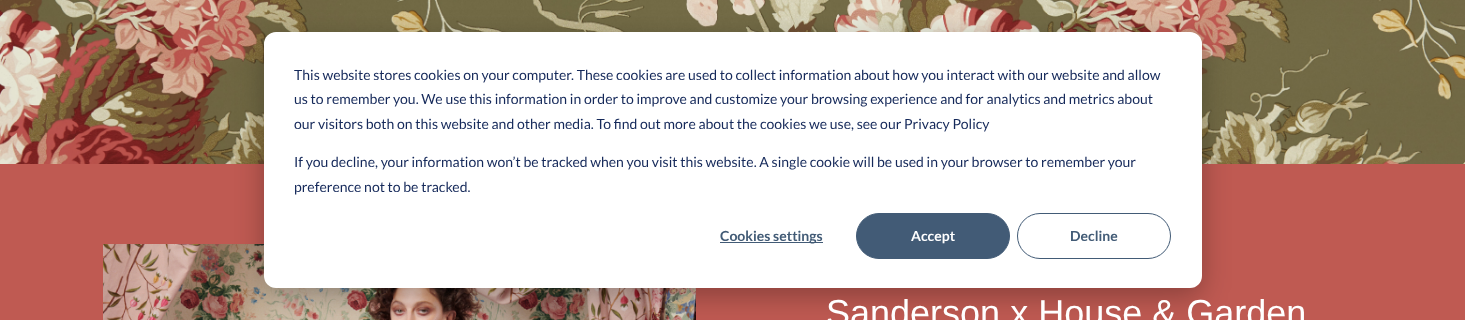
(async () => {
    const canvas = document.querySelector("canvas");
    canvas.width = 1465;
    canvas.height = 320;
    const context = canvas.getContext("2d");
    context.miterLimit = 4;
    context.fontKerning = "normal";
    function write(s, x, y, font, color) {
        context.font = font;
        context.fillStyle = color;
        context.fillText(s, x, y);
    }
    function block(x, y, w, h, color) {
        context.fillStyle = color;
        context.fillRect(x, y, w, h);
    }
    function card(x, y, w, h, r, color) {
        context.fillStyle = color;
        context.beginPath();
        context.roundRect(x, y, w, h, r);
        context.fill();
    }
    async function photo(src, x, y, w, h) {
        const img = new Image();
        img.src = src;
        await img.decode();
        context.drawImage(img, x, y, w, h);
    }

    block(0, 0, 1465, 320, "rgb(255, 255, 255)");
    await photo("media/1.png", 0, 0, 1465, 164);
    block(0, 164, 1465, 156, "rgb(191, 90, 82)");
    await photo("media/2.png", 103, 244, 593, 76);
    context.fillStyle = "rgba(0, 0, 0, 0.28)";
    context.filter = "blur(14px)";
    context.beginPath();
    context.roundRect(264, 40, 938, 256, 12);
    context.fill();
    context.filter = "none";
    card(264, 32, 938, 256, 12, "rgb(255, 255, 255)");
    write("This website stores cookies on your computer. These cookies are used to collect information about how you interact with our website and allow", 294, 80, "14px Lato", "rgb(21, 41, 90)");
    write("us to remember you. We use this information in order to improve and customize your browsing experience and for analytics and metrics about", 294, 104, "14px Lato", "rgb(21, 41, 90)");
    write("our visitors both on this website and other media. To find out more about the cookies we use, see our Privacy Policy", 294, 129, "14px Lato", "rgb(21, 41, 90)");
    write("If you decline, your information won’t be tracked when you visit this website. A single cookie will be used in your browser to remember your", 294, 167, "14px Lato", "rgb(21, 41, 90)");
    write("preference not to be tracked.", 294, 192, "14px Lato", "rgb(21, 41, 90)");
    block(720, 242, 103, 1, "rgb(66, 91, 118)");
    write("Cookies settings", 720, 241, "bold 14px Lato", "rgb(66, 91, 118)");
    context.beginPath();
    context.roundRect(856.5, 213.5, 153, 45, 22.5);
    context.fill();
    context.strokeStyle = "rgb(66, 91, 118)";
    context.stroke();
    write("Accept", 911, 241, "bold 14px Lato", "rgb(255, 255, 255)");
    context.beginPath();
    context.roundRect(1017.5, 213.5, 153, 45, 22.5);
    context.stroke();
    write("Decline", 1070, 241, "bold 14px Lato", "rgb(66, 91, 118)");
    write("Sanderson x House & Garden", 826, 325, "36px Liberation Sans", "rgb(255, 255, 255)");
})();
